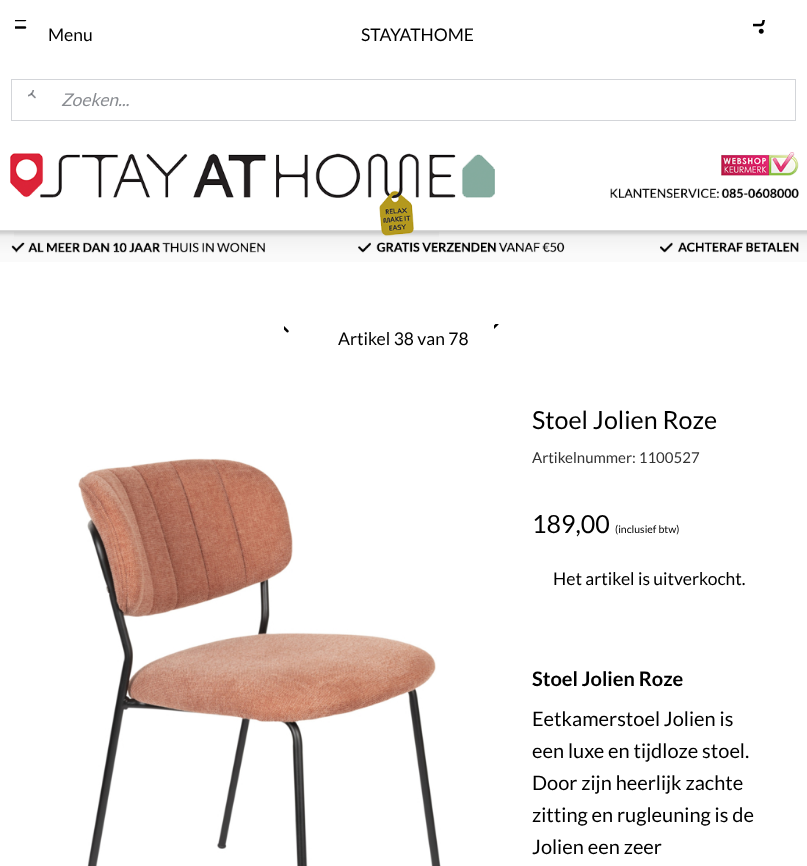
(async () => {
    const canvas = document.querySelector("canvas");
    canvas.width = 807;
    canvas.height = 866;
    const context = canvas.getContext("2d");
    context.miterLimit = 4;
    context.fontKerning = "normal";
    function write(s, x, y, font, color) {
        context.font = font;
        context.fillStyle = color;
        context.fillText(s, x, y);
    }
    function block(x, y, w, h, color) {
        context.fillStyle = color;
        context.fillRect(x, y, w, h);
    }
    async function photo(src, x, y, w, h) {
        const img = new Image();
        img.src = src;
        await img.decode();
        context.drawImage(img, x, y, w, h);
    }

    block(0, 0, 807, 866, "rgb(255, 255, 255)");
    await photo("media/1.png", 15, 20, 12, 9);
    write("Menu", 48, 41, "17.5px Lato", "rgb(0, 0, 0)");
    write("STAYATHOME", 361, 41, "17.5px Lato", "rgb(0, 0, 0)");
    await photo("media/2.png", 753, 20, 12, 14);
    context.strokeStyle = "rgb(211, 213, 217)";
    context.strokeRect(11.5, 79.5, 784, 41);
    await photo("media/3.png", 28, 90, 8, 9);
    write("Zoeken...", 61, 106, "italic 17.5px Lato", "rgb(137, 140, 145)");
    await photo("media/4.png", 0, 152, 807, 110);
    await photo("media/5.png", 284, 326, 5, 7);
    await photo("media/6.png", 494, 324, 5, 5);
    write("Artikel 38 van 78", 338, 345, "17.5px Lato", "rgb(0, 0, 0)");
    await photo("media/7.png", 78, 458, 363, 408);
    write("Stoel Jolien Roze", 532, 429, "25px Lato", "rgb(0, 0, 0)");
    write("Artikelnummer: 1100527", 532, 463, "15px Lato", "rgb(51, 51, 51)");
    write("189,00", 532, 533, "25px Lato", "rgb(0, 0, 0)");
    write("(inclusief btw)", 615, 533, "10.5px Lato", "rgb(0, 0, 0)");
    write("Het artikel is uitverkocht.", 553, 585, "17.5px Lato", "rgb(0, 0, 0)");
    write("Stoel Jolien Roze", 532, 686, "bold 20px Lato", "rgb(0, 0, 0)");
    write("Eetkamerstoel Jolien is", 532, 726, "20px Lato", "rgb(0, 0, 0)");
    write("een luxe en tijdloze stoel.", 532, 758, "20px Lato", "rgb(0, 0, 0)");
    write("Door zijn heerlijk zachte", 532, 790, "20px Lato", "rgb(0, 0, 0)");
    write("zitting en rugleuning is de", 532, 822, "20px Lato", "rgb(0, 0, 0)");
    write("Jolien een zeer", 532, 854, "20px Lato", "rgb(0, 0, 0)");
})();
